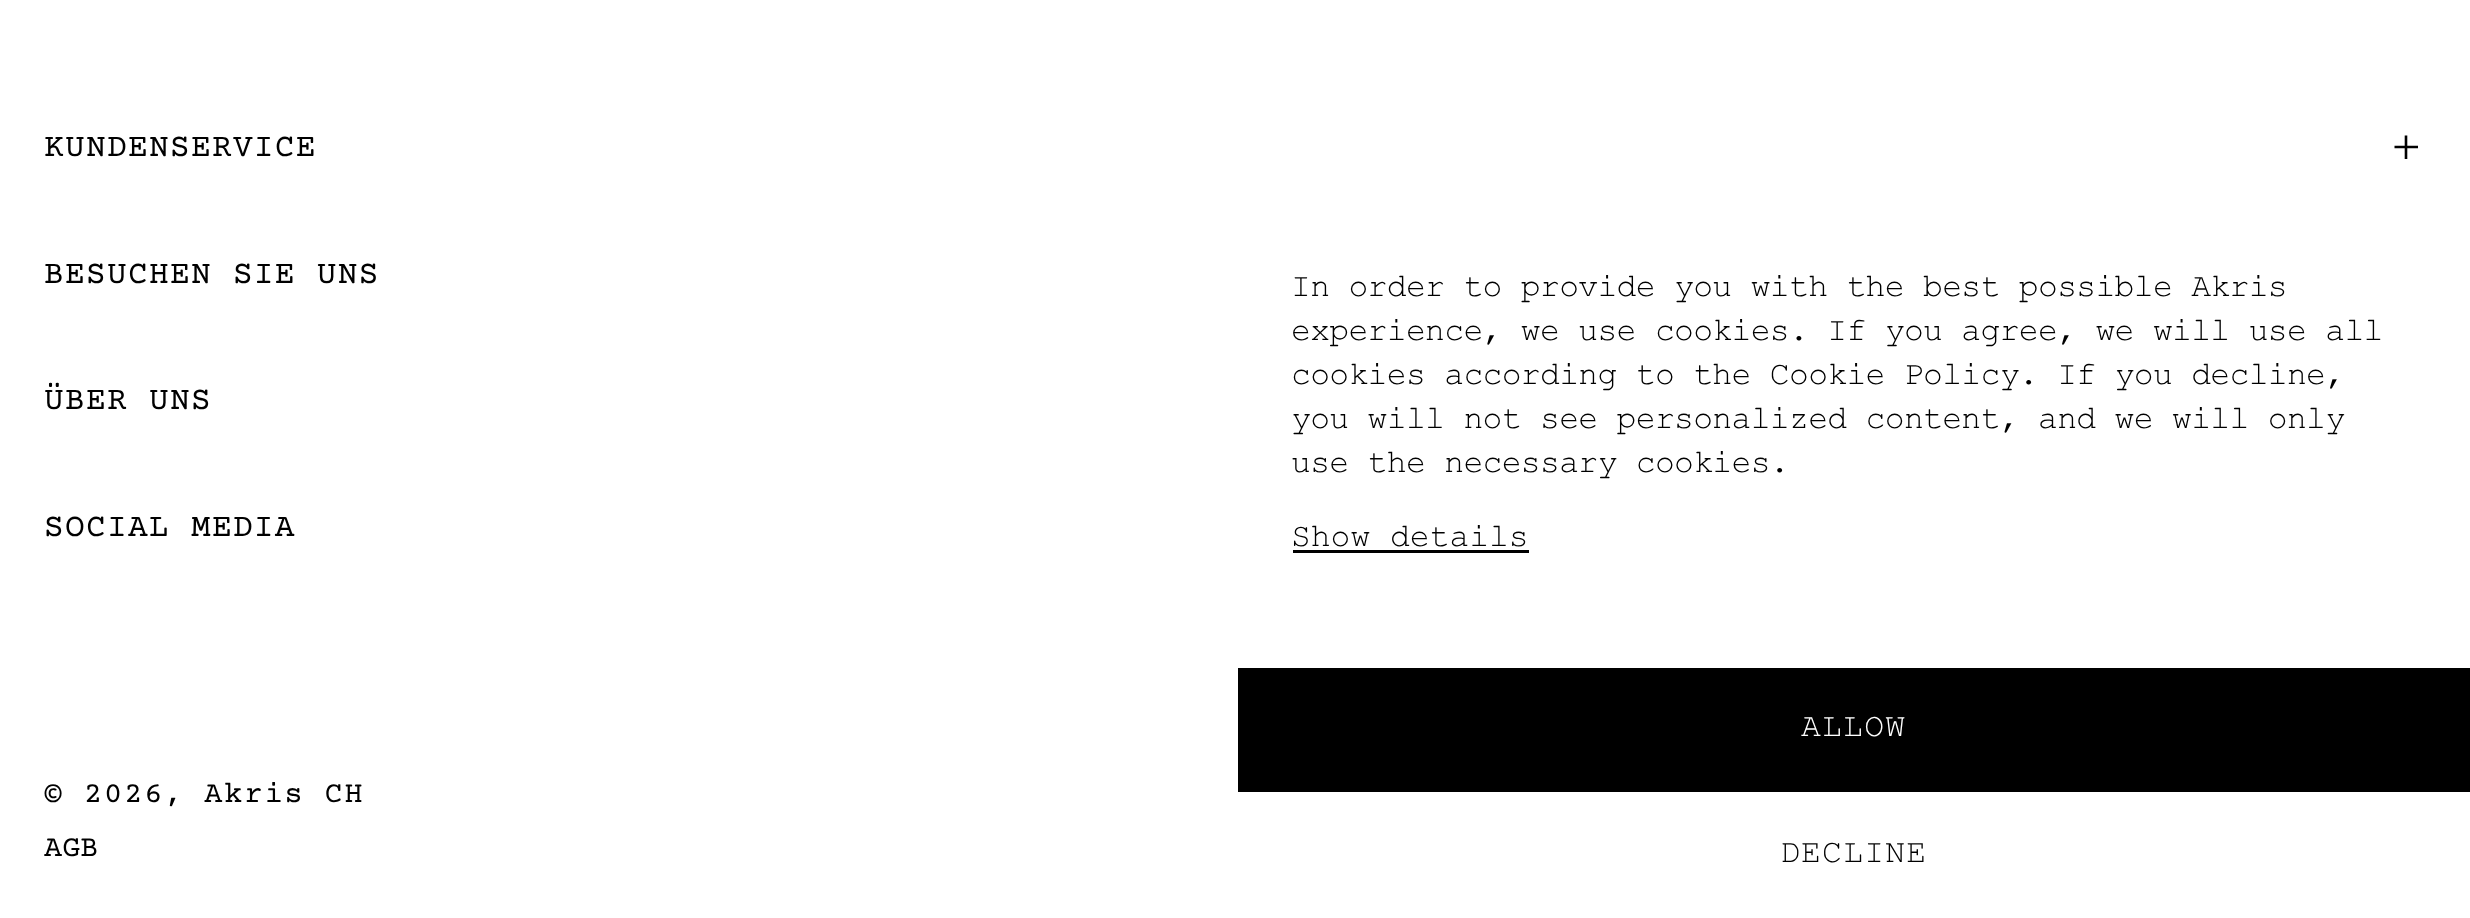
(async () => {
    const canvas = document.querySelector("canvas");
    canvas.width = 2470;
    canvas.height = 918;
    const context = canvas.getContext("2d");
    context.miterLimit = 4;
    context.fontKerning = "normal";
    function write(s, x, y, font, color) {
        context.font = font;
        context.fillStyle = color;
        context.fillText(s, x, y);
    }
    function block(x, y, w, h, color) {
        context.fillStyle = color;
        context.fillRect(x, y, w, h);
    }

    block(0, 0, 2470, 918, "rgb(255, 255, 255)");
    context.letterSpacing = "1.2px";
    write("KUNDENSERVICE", 44, 156, "33px Courier Prime", "rgb(0, 0, 0)");
    context.beginPath();
    context.moveTo(2394.5, 147);
    context.lineTo(2418, 147);
    context.moveTo(2406, 135.5);
    context.lineTo(2406, 159);
    context.strokeStyle = "rgb(0, 0, 0)";
    context.lineWidth = 2.6;
    context.stroke();
    write("BESUCHEN SIE UNS", 44, 283, "33px Courier Prime", "rgb(0, 0, 0)");
    write("ÜBER UNS", 44, 409, "33px Courier Prime", "rgb(0, 0, 0)");
    write("SOCIAL MEDIA", 44, 536, "33px Courier Prime", "rgb(0, 0, 0)");
    context.letterSpacing = "1.9px";
    write("© 2026, Akris CH", 44, 802, "30.25px Courier Prime", "rgb(0, 0, 0)");
    context.letterSpacing = "0px";
    write("AGB", 44, 856, "30.25px Courier Prime", "rgb(0, 0, 0)");
    context.letterSpacing = "-0.65px";
    write("In order to provide you with the best possible Akris", 1291, 296, "33px Courier New", "rgb(0, 0, 0)");
    write("experience, we use cookies. If you agree, we will use all", 1291, 340, "33px Courier New", "rgb(0, 0, 0)");
    write("cookies according to the Cookie Policy. If you decline,", 1291, 384, "33px Courier New", "rgb(0, 0, 0)");
    write("you will not see personalized content, and we will only", 1291, 428, "33px Courier New", "rgb(0, 0, 0)");
    write("use the necessary cookies.", 1291, 472, "33px Courier New", "rgb(0, 0, 0)");
    context.letterSpacing = "0px";
    write("Show details", 1291, 546, "33px Courier New", "rgb(0, 0, 0)");
    block(1293, 550, 236, 3, "rgb(0, 0, 0)");
    block(1238, 668, 1232, 124, "rgb(0, 0, 0)");
    context.letterSpacing = "1.25px";
    write("ALLOW", 1801, 736, "33px Courier New", "rgb(255, 255, 255)");
    write("DECLINE", 1780, 862, "33px Courier New", "rgb(0, 0, 0)");
})();
